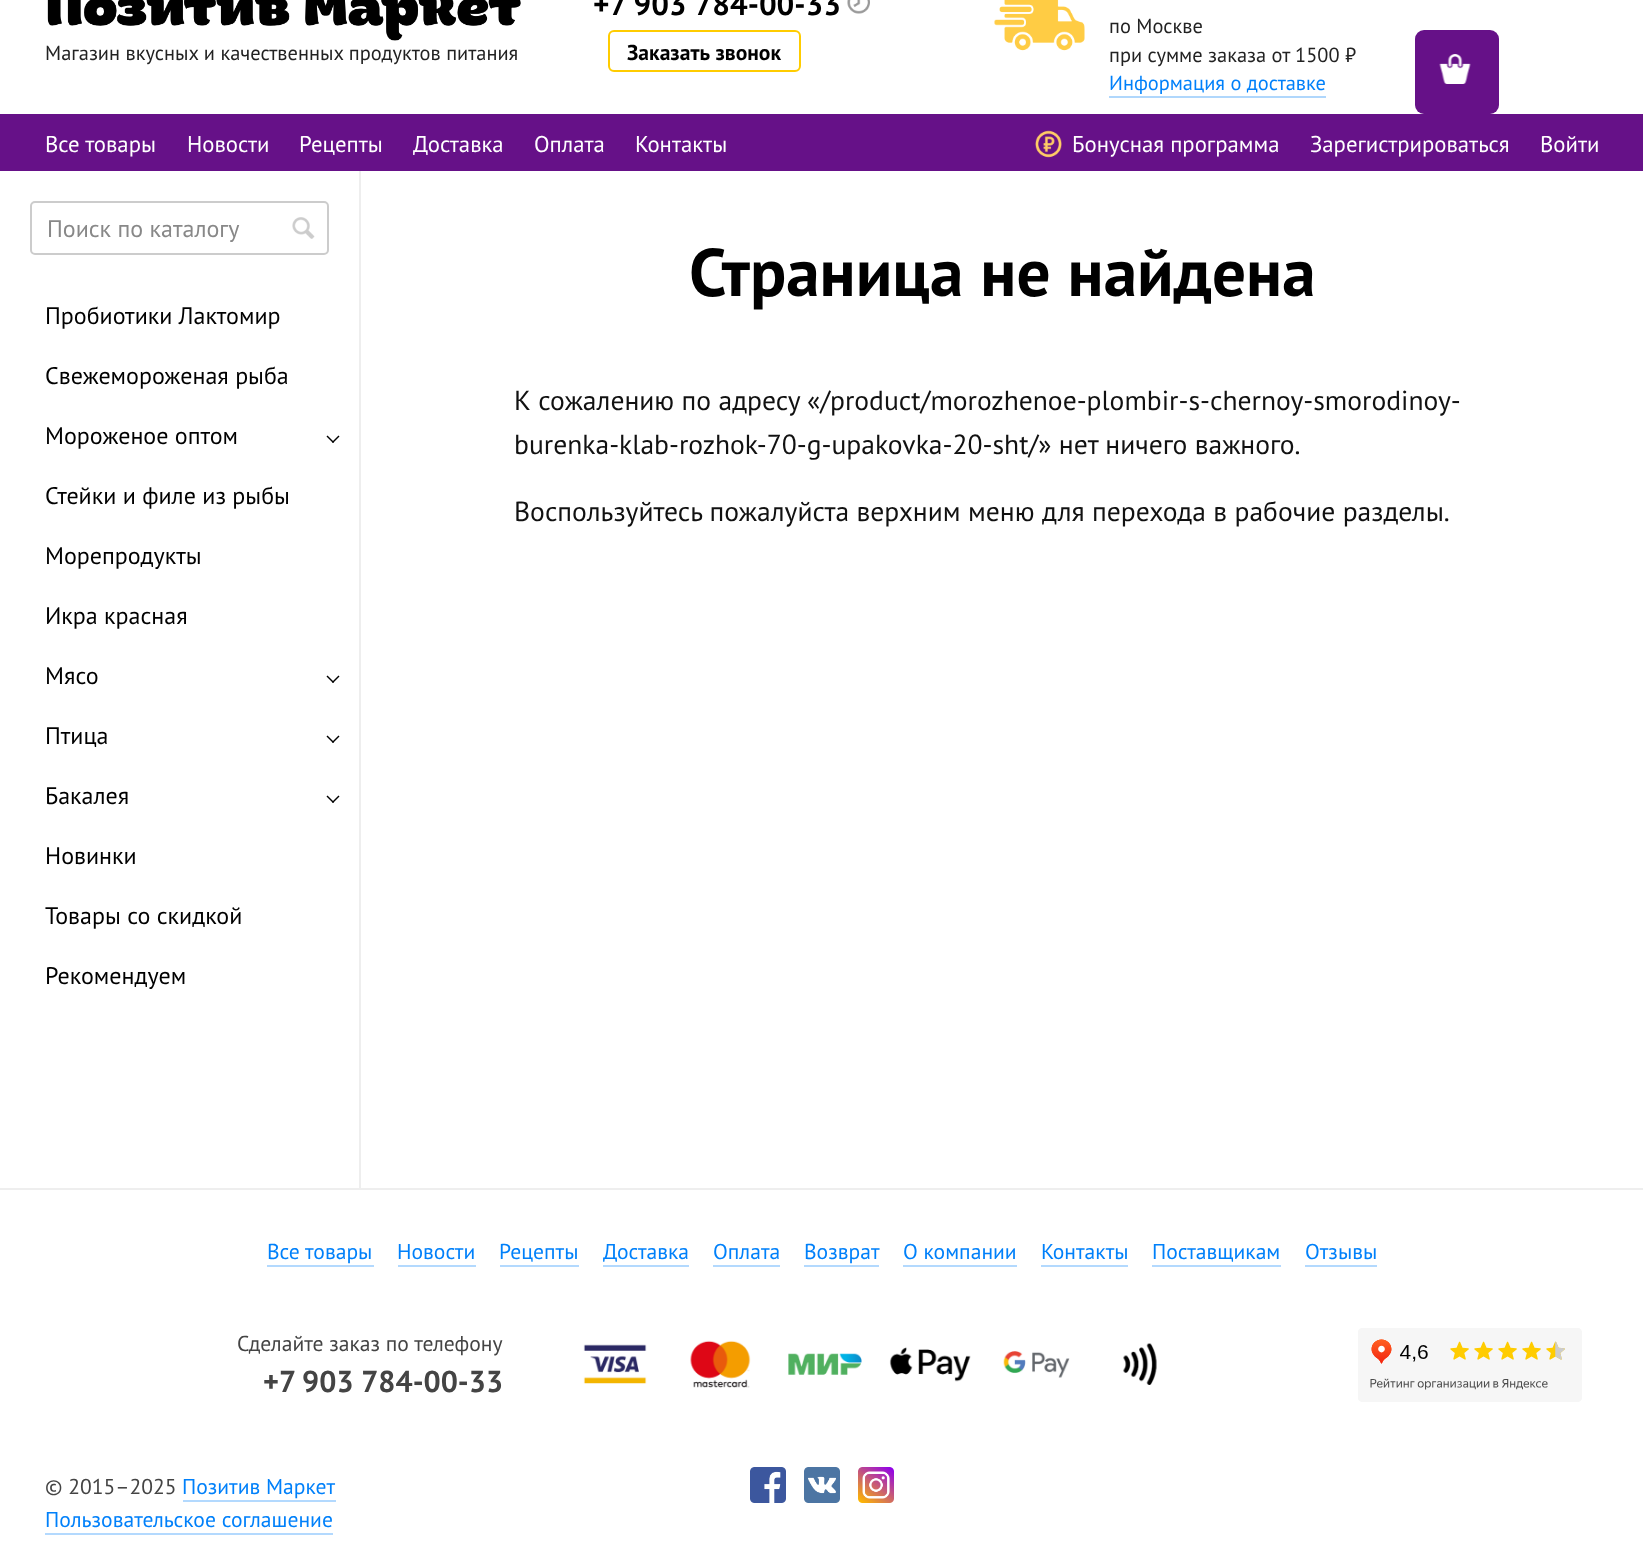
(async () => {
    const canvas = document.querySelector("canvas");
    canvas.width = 1643;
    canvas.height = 1567;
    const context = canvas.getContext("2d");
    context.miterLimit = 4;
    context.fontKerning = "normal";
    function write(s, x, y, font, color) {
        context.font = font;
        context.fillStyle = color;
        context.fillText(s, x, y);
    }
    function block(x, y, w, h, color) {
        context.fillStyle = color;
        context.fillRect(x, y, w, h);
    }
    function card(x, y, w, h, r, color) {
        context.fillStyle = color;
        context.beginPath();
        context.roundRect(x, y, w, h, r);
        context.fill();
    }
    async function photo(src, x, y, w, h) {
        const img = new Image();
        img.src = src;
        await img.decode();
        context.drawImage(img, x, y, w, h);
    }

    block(0, 0, 1643, 1567, "rgb(255, 255, 255)");
    await photo("media/1.png", 47, 0, 474, 41);
    write("Магазин вкусных и качественных продуктов питания", 45, 60, "20.4px PT Sans", "rgb(34, 34, 34)");
    write("+7 903 784-00-33", 593, 15, "bold 31.25px PT Sans", "rgb(0, 0, 0)");
    await photo("media/2.png", 847, 0, 23, 14);
    context.beginPath();
    context.roundRect(609, 31, 191, 40, 5);
    context.strokeStyle = "rgb(255, 204, 0)";
    context.lineWidth = 2;
    context.stroke();
    write("Заказать звонок", 627, 60, "bold 21.6px PT Sans", "rgb(0, 0, 0)");
    await photo("media/3.png", 994, 0, 91, 51);
    write("по Москве", 1109, 33, "20.4px PT Sans", "rgb(34, 34, 34)");
    write("при сумме заказа от 1500 ₽", 1109, 62, "20.4px PT Sans", "rgb(34, 34, 34)");
    write("Информация о доставке", 1109, 90, "20.4px PT Sans", "rgb(0, 128, 250)");
    block(1109, 96, 217, 2, "rgb(176, 215, 252)");
    card(1415, 30, 84, 84, 9, "rgb(102, 17, 136)");
    await photo("media/4.png", 1439, 54, 32, 30);
    block(0, 114, 1643, 57, "rgb(102, 17, 136)");
    write("Все товары", 45, 152, "22.75px PT Sans", "rgb(255, 255, 255)");
    write("Новости", 187, 152, "22.75px PT Sans", "rgb(255, 255, 255)");
    write("Рецепты", 299, 152, "22.75px PT Sans", "rgb(255, 255, 255)");
    write("Доставка", 413, 152, "22.75px PT Sans", "rgb(255, 255, 255)");
    write("Оплата", 534, 152, "22.75px PT Sans", "rgb(255, 255, 255)");
    write("Контакты", 635, 152, "22.75px PT Sans", "rgb(255, 255, 255)");
    await photo("media/5.png", 1035, 130, 27, 28);
    write("Бонусная программа", 1072, 152, "22.75px PT Sans", "rgb(255, 255, 255)");
    write("Зарегистрироваться", 1310, 152, "22.75px PT Sans", "rgb(255, 255, 255)");
    write("Войти", 1540, 152, "22.75px PT Sans", "rgb(255, 255, 255)");
    block(359, 171, 2, 1017, "rgb(238, 238, 238)");
    context.beginPath();
    context.roundRect(31, 202, 297, 52, 4);
    context.strokeStyle = "rgb(204, 204, 204)";
    context.stroke();
    write("Поиск по каталогу", 47, 237, "24px PT Sans", "rgb(136, 136, 136)");
    await photo("media/6.png", 292, 217, 23, 22);
    write("Пробиотики Лактомир", 45, 324, "24px PT Sans", "rgb(0, 0, 0)");
    write("Свежемороженая рыба", 45, 384, "24px PT Sans", "rgb(0, 0, 0)");
    write("Мороженое оптом", 45, 444, "24px PT Sans", "rgb(0, 0, 0)");
    context.beginPath();
    context.moveTo(338.5, 435.5);
    context.lineTo(339.5, 436.5);
    context.lineTo(333, 443);
    context.lineTo(332, 442);
    context.closePath();
    context.fill();
    context.beginPath();
    context.moveTo(327.5, 435.5);
    context.lineTo(334, 442);
    context.lineTo(333, 443);
    context.lineTo(326.5, 436.5);
    context.closePath();
    context.fill();
    write("Стейки и филе из рыбы", 45, 504, "24px PT Sans", "rgb(0, 0, 0)");
    write("Морепродукты", 45, 564, "24px PT Sans", "rgb(0, 0, 0)");
    write("Икра красная", 45, 624, "24px PT Sans", "rgb(0, 0, 0)");
    write("Мясо", 45, 684, "24px PT Sans", "rgb(0, 0, 0)");
    context.beginPath();
    context.moveTo(338.5, 675.5);
    context.lineTo(339.5, 676.5);
    context.lineTo(333, 683);
    context.lineTo(332, 682);
    context.closePath();
    context.fill();
    context.beginPath();
    context.moveTo(327.5, 675.5);
    context.lineTo(334, 682);
    context.lineTo(333, 683);
    context.lineTo(326.5, 676.5);
    context.closePath();
    context.fill();
    write("Птица", 45, 744, "24px PT Sans", "rgb(0, 0, 0)");
    context.beginPath();
    context.moveTo(338.5, 735.5);
    context.lineTo(339.5, 736.5);
    context.lineTo(333, 743);
    context.lineTo(332, 742);
    context.closePath();
    context.fill();
    context.beginPath();
    context.moveTo(327.5, 735.5);
    context.lineTo(334, 742);
    context.lineTo(333, 743);
    context.lineTo(326.5, 736.5);
    context.closePath();
    context.fill();
    write("Бакалея", 45, 804, "24px PT Sans", "rgb(0, 0, 0)");
    context.beginPath();
    context.moveTo(338.5, 795.5);
    context.lineTo(339.5, 796.5);
    context.lineTo(333, 803);
    context.lineTo(332, 802);
    context.closePath();
    context.fill();
    context.beginPath();
    context.moveTo(327.5, 795.5);
    context.lineTo(334, 802);
    context.lineTo(333, 803);
    context.lineTo(326.5, 796.5);
    context.closePath();
    context.fill();
    write("Новинки", 45, 864, "24px PT Sans", "rgb(0, 0, 0)");
    write("Товары со скидкой", 45, 924, "24px PT Sans", "rgb(0, 0, 0)");
    write("Рекомендуем", 45, 984, "24px PT Sans", "rgb(0, 0, 0)");
    write("Страница не найдена", 689, 296, "bold 67.25px PT Sans", "rgb(0, 0, 0)");
    write("К сожалению по адресу «/product/morozhenoe-plombir-s-chernoy-smorodinoy-", 514, 410, "27.6px PT Sans", "rgb(17, 17, 17)");
    write("burenka-klab-rozhok-70-g-upakovka-20-sht/» нет ничего важного.", 514, 454, "27.6px PT Sans", "rgb(17, 17, 17)");
    write("Воспользуйтесь пожалуйста верхним меню для перехода в рабочие разделы.", 514, 521, "27.6px PT Sans", "rgb(17, 17, 17)");
    block(0, 1188, 1643, 2, "rgb(238, 238, 238)");
    write("Все товары", 267, 1259, "21.6px PT Sans", "rgb(0, 128, 250)");
    block(267, 1265, 107, 2, "rgb(179, 217, 254)");
    write("Новости", 397, 1259, "21.6px PT Sans", "rgb(0, 128, 250)");
    block(398, 1265, 78, 2, "rgb(179, 217, 254)");
    write("Рецепты", 499, 1259, "21.6px PT Sans", "rgb(0, 128, 250)");
    block(500, 1265, 79, 2, "rgb(179, 217, 254)");
    write("Доставка", 603, 1259, "21.6px PT Sans", "rgb(0, 128, 250)");
    block(603, 1265, 86, 2, "rgb(179, 217, 254)");
    write("Оплата", 713, 1259, "21.6px PT Sans", "rgb(0, 128, 250)");
    block(713, 1265, 67, 2, "rgb(179, 217, 254)");
    write("Возврат", 804, 1259, "21.6px PT Sans", "rgb(0, 128, 250)");
    block(804, 1265, 75, 2, "rgb(179, 217, 254)");
    write("О компании", 903, 1259, "21.6px PT Sans", "rgb(0, 128, 250)");
    block(903, 1265, 114, 2, "rgb(179, 217, 254)");
    write("Контакты", 1041, 1259, "21.6px PT Sans", "rgb(0, 128, 250)");
    block(1041, 1265, 87, 2, "rgb(179, 217, 254)");
    write("Поставщикам", 1152, 1259, "21.6px PT Sans", "rgb(0, 128, 250)");
    block(1152, 1265, 129, 2, "rgb(179, 217, 254)");
    write("Отзывы", 1305, 1259, "21.6px PT Sans", "rgb(0, 128, 250)");
    block(1305, 1265, 72, 2, "rgb(179, 217, 254)");
    write("Сделайте заказ по телефону", 237, 1351, "21.6px PT Sans", "rgb(68, 68, 68)");
    write("+7 903 784-00-33", 263, 1392, "bold 30.25px PT Sans", "rgb(68, 68, 68)");
    await photo("media/7.png", 583, 1344, 64, 40);
    await photo("media/8.png", 690, 1340, 61, 48);
    await photo("media/9.png", 788, 1353, 74, 22);
    await photo("media/10.png", 889, 1347, 82, 35);
    await photo("media/11.png", 1003, 1351, 67, 27);
    await photo("media/12.png", 1123, 1343, 34, 42);
    await photo("media/13.png", 1358, 1328, 224, 74);
    write("© 2015–2025", 45, 1494, "21.6px PT Sans", "rgb(68, 68, 68)");
    write("Позитив Маркет", 182, 1494, "21.6px PT Sans", "rgb(0, 128, 250)");
    block(183, 1500, 153, 2, "rgb(179, 217, 254)");
    write("Пользовательское соглашение", 45, 1527, "21.6px PT Sans", "rgb(0, 128, 250)");
    block(45, 1533, 288, 2, "rgb(179, 217, 254)");
    await photo("media/14.png", 750, 1467, 36, 36);
    await photo("media/15.png", 804, 1467, 36, 36);
    await photo("media/16.png", 858, 1467, 36, 36);
})();
